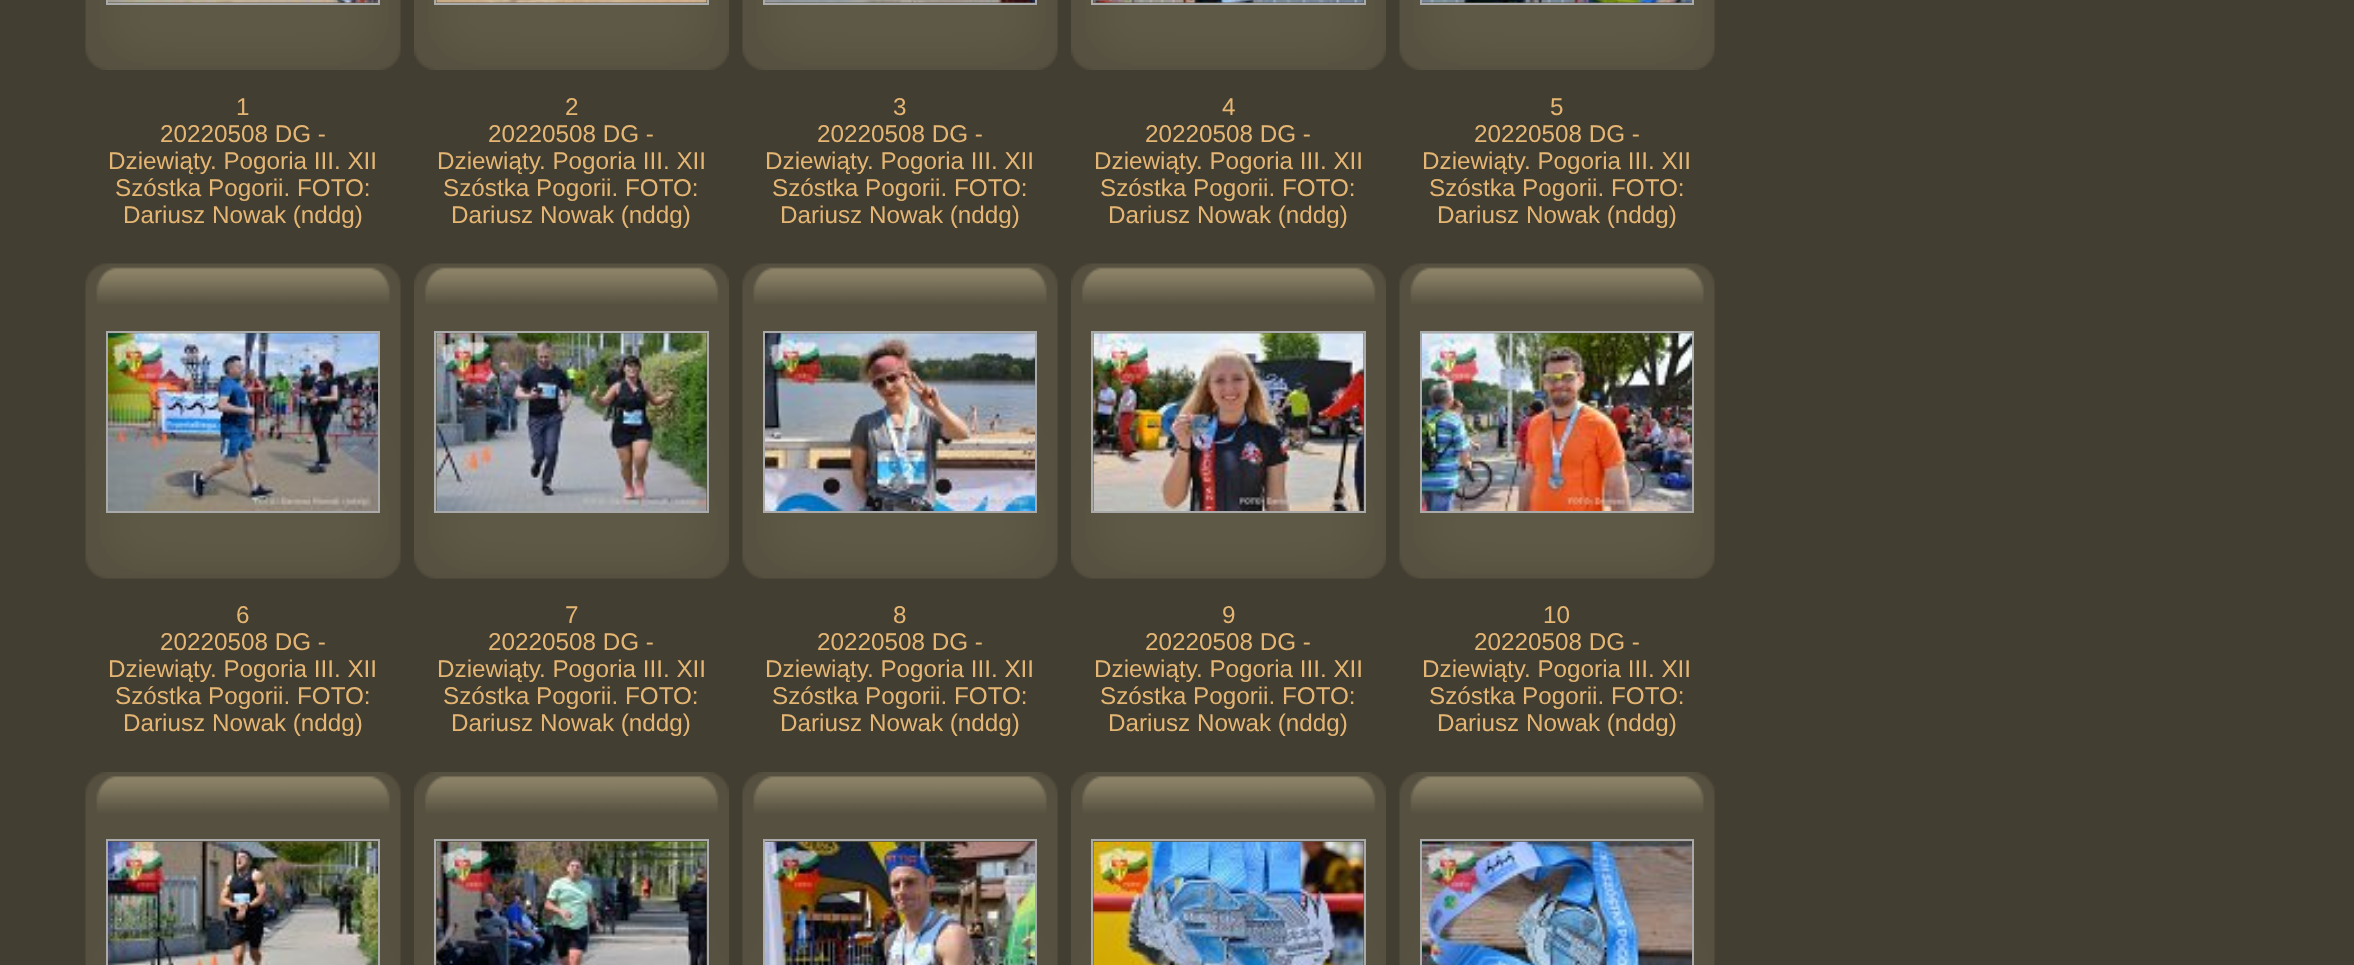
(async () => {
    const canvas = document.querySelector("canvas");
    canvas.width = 2354;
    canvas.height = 965;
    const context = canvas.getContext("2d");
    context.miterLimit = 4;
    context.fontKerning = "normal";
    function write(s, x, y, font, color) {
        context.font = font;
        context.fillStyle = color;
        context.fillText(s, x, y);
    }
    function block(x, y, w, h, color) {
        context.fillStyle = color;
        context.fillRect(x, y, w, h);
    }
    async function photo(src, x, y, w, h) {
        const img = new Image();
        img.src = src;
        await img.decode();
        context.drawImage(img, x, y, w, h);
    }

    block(0, 0, 2354, 965, "rgb(67, 62, 50)");
    await photo("media/1.png", 85, 0, 316, 70);
    context.strokeStyle = "rgb(170, 170, 170)";
    context.lineWidth = 2;
    context.strokeRect(107, -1, 272, 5);
    await photo("media/2.png", 108, 0, 270, 3);
    write("1", 236, 115, "24.25px Liberation Sans", "rgb(229, 182, 115)");
    write("20220508 DG -", 160, 142, "24.25px Liberation Sans", "rgb(229, 182, 115)");
    write("Dziewiąty. Pogoria III. XII", 108, 169, "24.25px Liberation Sans", "rgb(229, 182, 115)");
    write("Szóstka Pogorii. FOTO:", 115, 196, "24.25px Liberation Sans", "rgb(229, 182, 115)");
    write("Dariusz Nowak (nddg)", 123, 223, "24.25px Liberation Sans", "rgb(229, 182, 115)");
    await photo("media/3.png", 414, 0, 315, 70);
    context.strokeRect(435, -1, 273, 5);
    await photo("media/4.png", 436, 0, 271, 3);
    write("2", 565, 115, "24.25px Liberation Sans", "rgb(229, 182, 115)");
    write("20220508 DG -", 488, 142, "24.25px Liberation Sans", "rgb(229, 182, 115)");
    write("Dziewiąty. Pogoria III. XII", 437, 169, "24.25px Liberation Sans", "rgb(229, 182, 115)");
    write("Szóstka Pogorii. FOTO:", 443, 196, "24.25px Liberation Sans", "rgb(229, 182, 115)");
    write("Dariusz Nowak (nddg)", 451, 223, "24.25px Liberation Sans", "rgb(229, 182, 115)");
    await photo("media/5.png", 742, 0, 316, 70);
    context.strokeRect(764, -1, 272, 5);
    await photo("media/6.png", 765, 0, 270, 3);
    write("3", 893, 115, "24.25px Liberation Sans", "rgb(229, 182, 115)");
    write("20220508 DG -", 817, 142, "24.25px Liberation Sans", "rgb(229, 182, 115)");
    write("Dziewiąty. Pogoria III. XII", 765, 169, "24.25px Liberation Sans", "rgb(229, 182, 115)");
    write("Szóstka Pogorii. FOTO:", 772, 196, "24.25px Liberation Sans", "rgb(229, 182, 115)");
    write("Dariusz Nowak (nddg)", 780, 223, "24.25px Liberation Sans", "rgb(229, 182, 115)");
    await photo("media/3.png", 1071, 0, 315, 70);
    context.strokeRect(1092, -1, 273, 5);
    await photo("media/7.png", 1093, 0, 271, 3);
    write("4", 1222, 115, "24.25px Liberation Sans", "rgb(229, 182, 115)");
    write("20220508 DG -", 1145, 142, "24.25px Liberation Sans", "rgb(229, 182, 115)");
    write("Dziewiąty. Pogoria III. XII", 1094, 169, "24.25px Liberation Sans", "rgb(229, 182, 115)");
    write("Szóstka Pogorii. FOTO:", 1100, 196, "24.25px Liberation Sans", "rgb(229, 182, 115)");
    write("Dariusz Nowak (nddg)", 1108, 223, "24.25px Liberation Sans", "rgb(229, 182, 115)");
    await photo("media/8.png", 1399, 0, 316, 70);
    context.strokeRect(1421, -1, 272, 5);
    await photo("media/9.png", 1422, 0, 270, 3);
    write("5", 1550, 115, "24.25px Liberation Sans", "rgb(229, 182, 115)");
    write("20220508 DG -", 1474, 142, "24.25px Liberation Sans", "rgb(229, 182, 115)");
    write("Dziewiąty. Pogoria III. XII", 1422, 169, "24.25px Liberation Sans", "rgb(229, 182, 115)");
    write("Szóstka Pogorii. FOTO:", 1429, 196, "24.25px Liberation Sans", "rgb(229, 182, 115)");
    write("Dariusz Nowak (nddg)", 1437, 223, "24.25px Liberation Sans", "rgb(229, 182, 115)");
    await photo("media/10.png", 85, 263, 316, 316);
    context.strokeRect(107, 332, 272, 180);
    await photo("media/11.png", 108, 333, 270, 178);
    write("6", 236, 623, "24.25px Liberation Sans", "rgb(229, 182, 115)");
    write("20220508 DG -", 160, 650, "24.25px Liberation Sans", "rgb(229, 182, 115)");
    write("Dziewiąty. Pogoria III. XII", 108, 677, "24.25px Liberation Sans", "rgb(229, 182, 115)");
    write("Szóstka Pogorii. FOTO:", 115, 704, "24.25px Liberation Sans", "rgb(229, 182, 115)");
    write("Dariusz Nowak (nddg)", 123, 731, "24.25px Liberation Sans", "rgb(229, 182, 115)");
    await photo("media/12.png", 414, 263, 315, 316);
    context.strokeRect(435, 332, 273, 180);
    await photo("media/13.png", 436, 333, 271, 178);
    write("7", 565, 623, "24.25px Liberation Sans", "rgb(229, 182, 115)");
    write("20220508 DG -", 488, 650, "24.25px Liberation Sans", "rgb(229, 182, 115)");
    write("Dziewiąty. Pogoria III. XII", 437, 677, "24.25px Liberation Sans", "rgb(229, 182, 115)");
    write("Szóstka Pogorii. FOTO:", 443, 704, "24.25px Liberation Sans", "rgb(229, 182, 115)");
    write("Dariusz Nowak (nddg)", 451, 731, "24.25px Liberation Sans", "rgb(229, 182, 115)");
    await photo("media/14.png", 742, 263, 316, 316);
    context.strokeRect(764, 332, 272, 180);
    await photo("media/15.png", 765, 333, 270, 178);
    write("8", 893, 623, "24.25px Liberation Sans", "rgb(229, 182, 115)");
    write("20220508 DG -", 817, 650, "24.25px Liberation Sans", "rgb(229, 182, 115)");
    write("Dziewiąty. Pogoria III. XII", 765, 677, "24.25px Liberation Sans", "rgb(229, 182, 115)");
    write("Szóstka Pogorii. FOTO:", 772, 704, "24.25px Liberation Sans", "rgb(229, 182, 115)");
    write("Dariusz Nowak (nddg)", 780, 731, "24.25px Liberation Sans", "rgb(229, 182, 115)");
    await photo("media/12.png", 1071, 263, 315, 316);
    context.strokeRect(1092, 332, 273, 180);
    await photo("media/16.png", 1093, 333, 271, 178);
    write("9", 1222, 623, "24.25px Liberation Sans", "rgb(229, 182, 115)");
    write("20220508 DG -", 1145, 650, "24.25px Liberation Sans", "rgb(229, 182, 115)");
    write("Dziewiąty. Pogoria III. XII", 1094, 677, "24.25px Liberation Sans", "rgb(229, 182, 115)");
    write("Szóstka Pogorii. FOTO:", 1100, 704, "24.25px Liberation Sans", "rgb(229, 182, 115)");
    write("Dariusz Nowak (nddg)", 1108, 731, "24.25px Liberation Sans", "rgb(229, 182, 115)");
    await photo("media/17.png", 1399, 263, 316, 316);
    context.strokeRect(1421, 332, 272, 180);
    await photo("media/18.png", 1422, 333, 270, 178);
    write("10", 1543, 623, "24.25px Liberation Sans", "rgb(229, 182, 115)");
    write("20220508 DG -", 1474, 650, "24.25px Liberation Sans", "rgb(229, 182, 115)");
    write("Dziewiąty. Pogoria III. XII", 1422, 677, "24.25px Liberation Sans", "rgb(229, 182, 115)");
    write("Szóstka Pogorii. FOTO:", 1429, 704, "24.25px Liberation Sans", "rgb(229, 182, 115)");
    write("Dariusz Nowak (nddg)", 1437, 731, "24.25px Liberation Sans", "rgb(229, 182, 115)");
    await photo("media/19.png", 85, 772, 316, 193);
    context.strokeRect(107, 840, 272, 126);
    await photo("media/20.png", 108, 841, 270, 124);
    await photo("media/21.png", 414, 772, 315, 193);
    context.strokeRect(435, 840, 273, 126);
    await photo("media/22.png", 436, 841, 271, 124);
    await photo("media/23.png", 742, 772, 316, 193);
    context.strokeRect(764, 840, 272, 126);
    await photo("media/24.png", 765, 841, 270, 124);
    await photo("media/21.png", 1071, 772, 315, 193);
    context.strokeRect(1092, 840, 273, 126);
    await photo("media/25.png", 1093, 841, 271, 124);
    await photo("media/26.png", 1399, 772, 316, 193);
    context.strokeRect(1421, 840, 272, 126);
    await photo("media/27.png", 1422, 841, 270, 124);
})();
